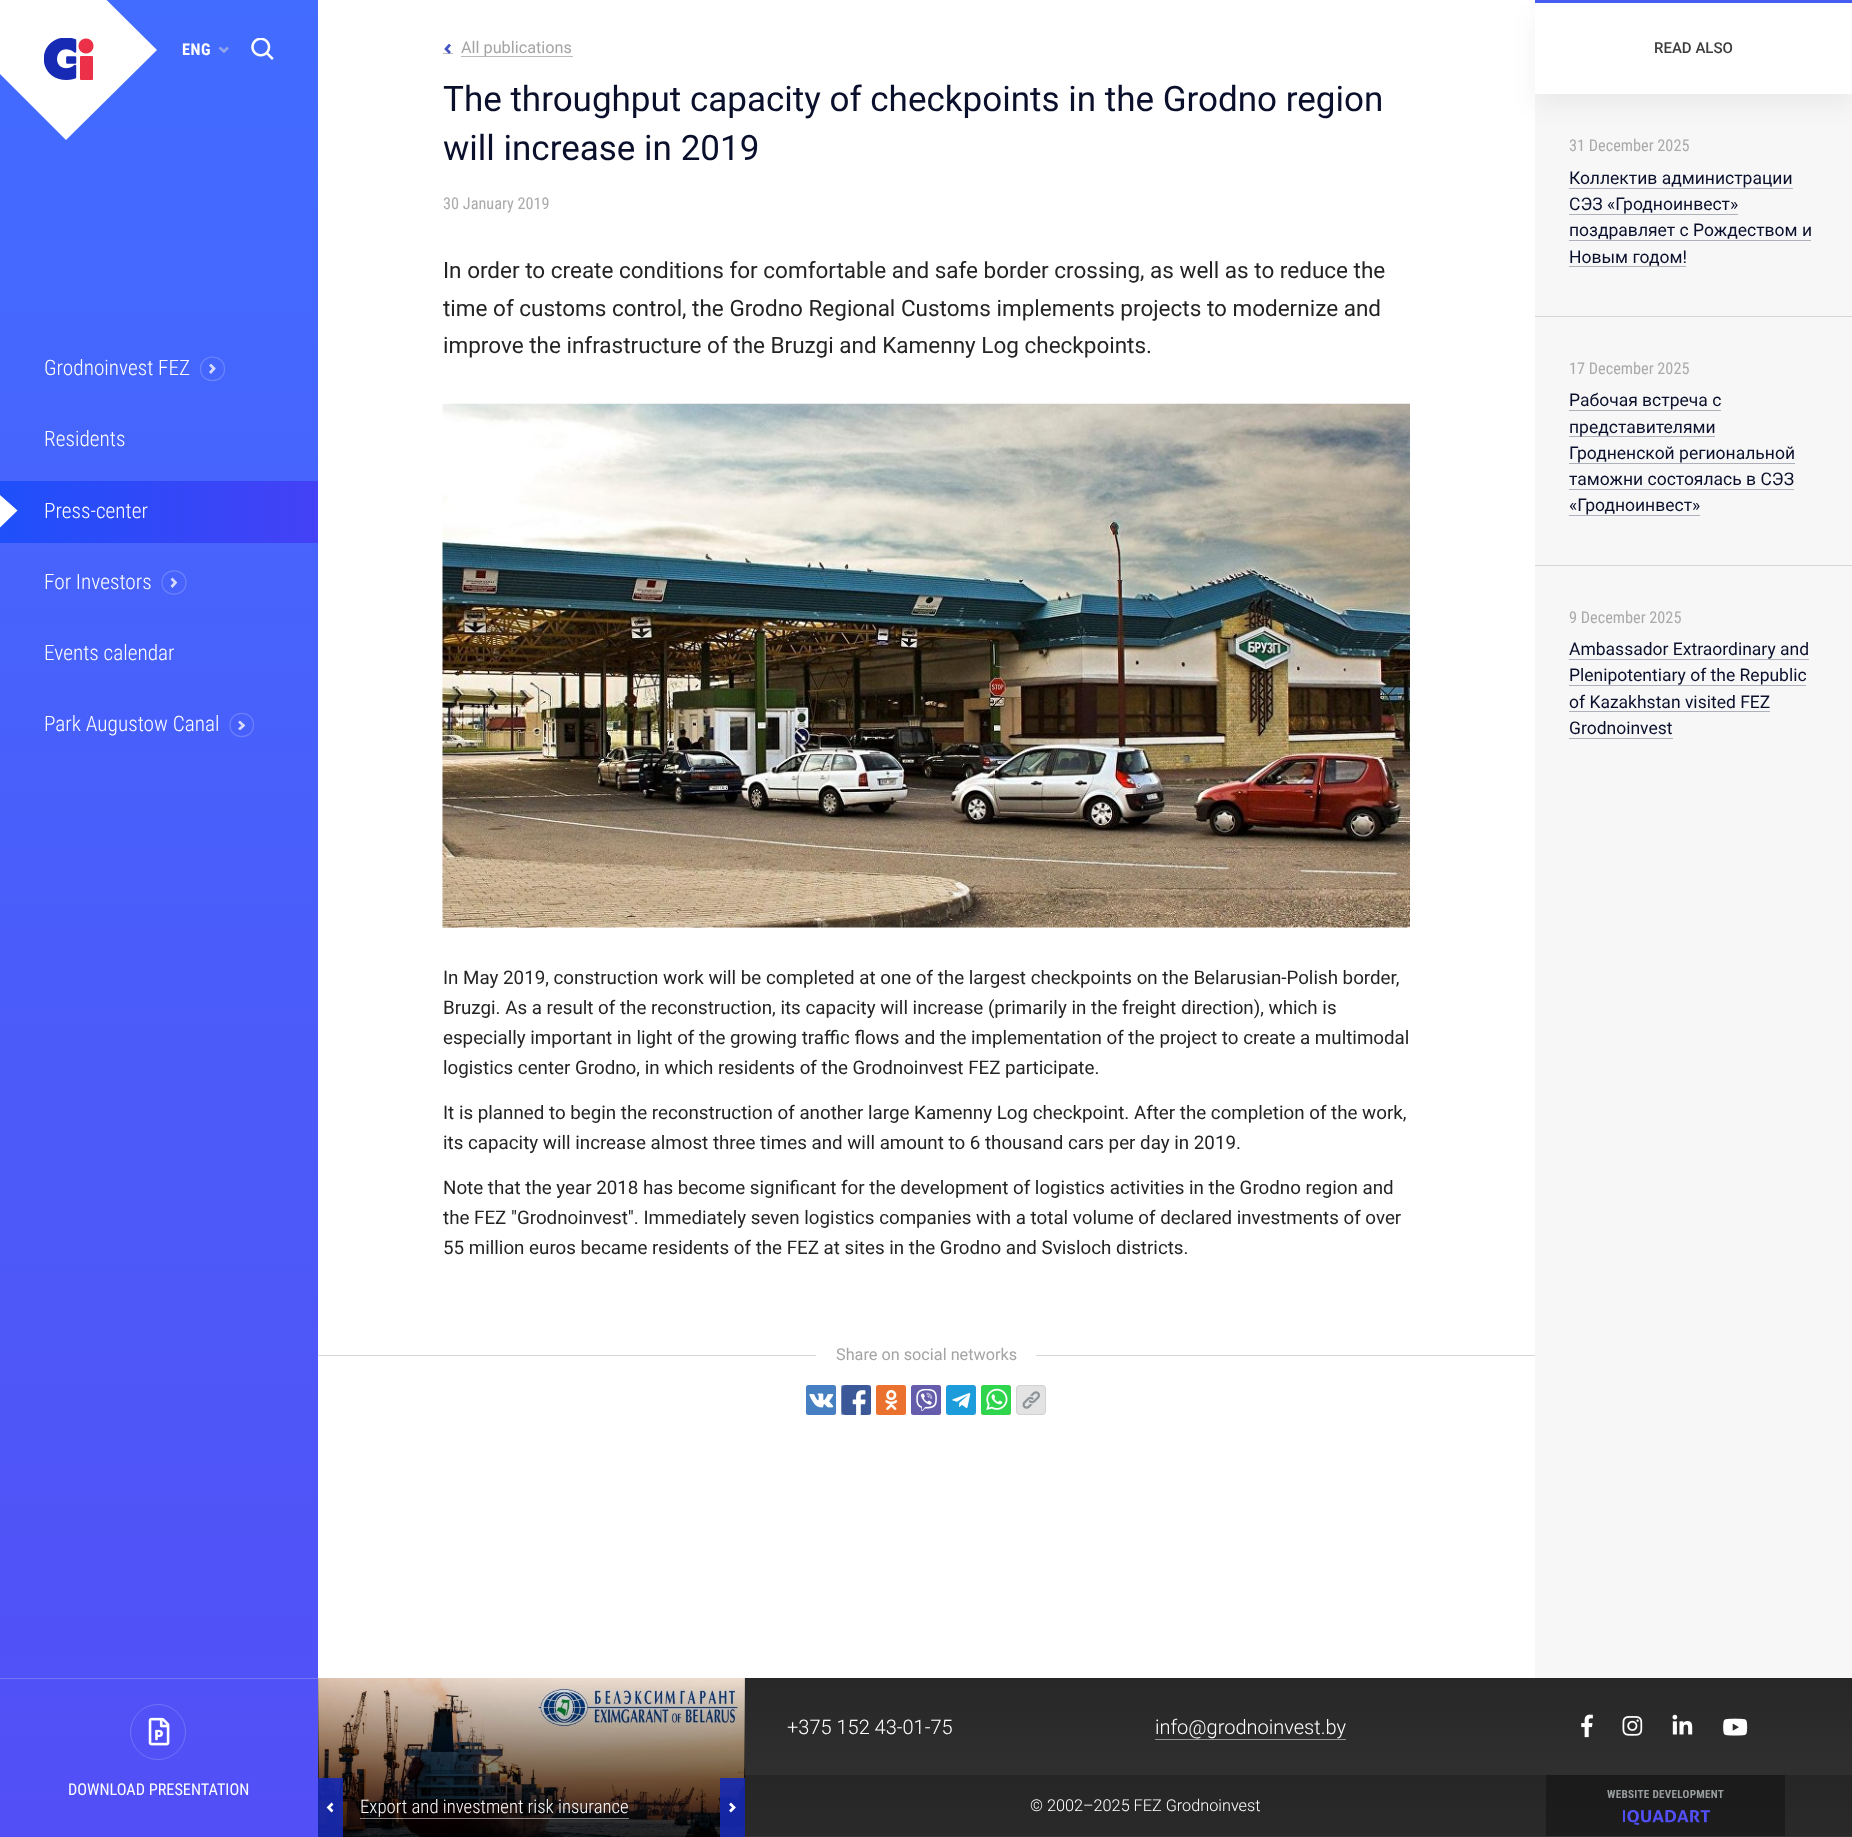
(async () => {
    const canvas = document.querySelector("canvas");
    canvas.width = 1852;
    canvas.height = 1837;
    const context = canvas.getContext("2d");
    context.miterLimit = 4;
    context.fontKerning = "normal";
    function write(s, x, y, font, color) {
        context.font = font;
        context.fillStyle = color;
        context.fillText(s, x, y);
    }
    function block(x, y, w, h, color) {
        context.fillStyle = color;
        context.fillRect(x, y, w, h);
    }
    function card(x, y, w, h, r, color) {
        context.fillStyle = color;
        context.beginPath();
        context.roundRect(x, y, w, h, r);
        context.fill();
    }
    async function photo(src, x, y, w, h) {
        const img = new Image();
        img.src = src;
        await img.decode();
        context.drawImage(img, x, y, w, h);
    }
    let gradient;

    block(0, 0, 1852, 1837, "rgb(255, 255, 255)");
    gradient = context.createLinearGradient(159, 0, 159, 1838);
    gradient.addColorStop(0, "rgb(66, 108, 255)");
    gradient.addColorStop(1, "rgb(82, 79, 246)");
    context.fillStyle = gradient;
    context.fillRect(0, 0, 318, 1837);
    context.fillStyle = "rgb(255, 255, 255)";
    context.beginPath();
    context.moveTo(31, -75);
    context.lineTo(157, 50);
    context.lineTo(66, 140);
    context.lineTo(-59, 15);
    context.closePath();
    context.fill();
    await photo("media/1.png", 44, 38, 50, 42);
    context.letterSpacing = "0.5px";
    write("ENG", 182, 55, "bold 16.25px Roboto Condensed", "rgb(255, 255, 255)");
    context.beginPath();
    context.moveTo(219.5, 47.5);
    context.lineTo(224, 51.5);
    context.lineTo(228, 47.5);
    context.strokeStyle = "rgb(144, 163, 235)";
    context.lineWidth = 2.7;
    context.stroke();
    await photo("media/2.png", 251, 38, 23, 22);
    block(0, 1678, 318, 1, "rgb(116, 117, 249)");
    context.beginPath();
    context.arc(158, 1732, 27.5, 0, Math.PI * 2);
    context.strokeStyle = "rgb(116, 115, 248)";
    context.lineWidth = 1;
    context.stroke();
    await photo("media/3.png", 148, 1717, 22, 29);
    context.letterSpacing = "0px";
    write("DOWNLOAD PRESENTATION", 68, 1795, "16.25px Roboto Condensed", "rgb(255, 255, 255)");
    write("Grodnoinvest FEZ", 44, 375, "300 21.25px Roboto Condensed", "rgb(255, 255, 255)");
    context.save();
    context.beginPath();
    context.moveTo(208.5, 374);
    context.lineTo(208.5, 364);
    context.lineTo(216, 364);
    context.lineTo(216, 374);
    context.closePath();
    context.clip();
    context.beginPath();
    context.moveTo(210, 373);
    context.lineTo(214, 368.5);
    context.lineTo(210, 364.5);
    context.strokeStyle = "rgb(214, 218, 254)";
    context.lineWidth = 2.7;
    context.stroke();
    context.restore();
    context.beginPath();
    context.moveTo(200.5, 369);
    context.bezierCurveTo(200.5, 353, 224.5, 353, 224.5, 369);
    context.bezierCurveTo(224.5, 384.5, 200.5, 384.5, 200.5, 369);
    context.closePath();
    context.strokeStyle = "rgb(106, 133, 253)";
    context.lineWidth = 1.2;
    context.stroke();
    write("Residents", 44, 446, "300 21.25px Roboto Condensed", "rgb(255, 255, 255)");
    gradient = context.createLinearGradient(0, 512, 318, 512);
    gradient.addColorStop(0, "rgb(31, 80, 250)");
    gradient.addColorStop(1, "rgb(68, 65, 246)");
    context.fillStyle = gradient;
    context.fillRect(0, 481, 318, 62);
    context.fillStyle = "rgb(255, 255, 255)";
    context.beginPath();
    context.moveTo(0, 495);
    context.lineTo(0, 527.5);
    context.lineTo(17.5, 510.5);
    context.closePath();
    context.fill("evenodd");
    write("Press-center", 44, 518, "300 21.25px Roboto Condensed", "rgb(255, 255, 255)");
    write("For Investors", 44, 589, "300 21.25px Roboto Condensed", "rgb(255, 255, 255)");
    context.beginPath();
    context.moveTo(171.5, 587);
    context.lineTo(175.5, 582.5);
    context.lineTo(171.5, 578.5);
    context.strokeStyle = "rgb(214, 218, 254)";
    context.lineWidth = 2.7;
    context.stroke();
    context.beginPath();
    context.moveTo(162, 582.5);
    context.bezierCurveTo(162, 567, 186, 567, 186, 582.5);
    context.bezierCurveTo(186, 598, 162, 598, 162, 582.5);
    context.closePath();
    context.strokeStyle = "rgb(108, 130, 253)";
    context.lineWidth = 1.2;
    context.stroke();
    write("Events calendar", 44, 660, "300 21.25px Roboto Condensed", "rgb(255, 255, 255)");
    write("Park Augustow Canal", 44, 731, "300 21.25px Roboto Condensed", "rgb(255, 255, 255)");
    context.save();
    context.beginPath();
    context.moveTo(238, 730);
    context.lineTo(238, 720);
    context.lineTo(245.5, 720);
    context.lineTo(245.5, 730);
    context.closePath();
    context.clip();
    context.beginPath();
    context.moveTo(239, 729.5);
    context.lineTo(243.5, 725.5);
    context.lineTo(239, 721.5);
    context.strokeStyle = "rgb(214, 218, 254)";
    context.lineWidth = 2.7;
    context.stroke();
    context.restore();
    context.beginPath();
    context.moveTo(230, 725);
    context.bezierCurveTo(230, 709.5, 253.5, 709.5, 253.5, 725);
    context.bezierCurveTo(253.5, 740.5, 230, 740.5, 230, 725);
    context.closePath();
    context.strokeStyle = "rgb(109, 128, 252)";
    context.stroke();
    block(461, 56, 112, 1, "rgb(186, 186, 186)");
    block(443, 53, 10, 1, "rgb(186, 186, 186)");
    context.save();
    context.beginPath();
    context.moveTo(451, 44);
    context.lineTo(451, 54);
    context.lineTo(444, 54);
    context.lineTo(444, 44);
    context.closePath();
    context.clip();
    context.beginPath();
    context.moveTo(450, 44.5);
    context.lineTo(446, 49);
    context.lineTo(450, 53);
    context.strokeStyle = "rgb(69, 85, 195)";
    context.lineWidth = 2.7;
    context.stroke();
    context.restore();
    write("All publications", 461, 53, "16.25px Roboto", "rgb(164, 164, 164)");
    write("The throughput capacity of checkpoints in the Grodno region", 443, 111, "35px Roboto", "rgb(10, 15, 44)");
    write("will increase in 2019", 443, 160, "35px Roboto", "rgb(10, 15, 44)");
    write("30 January 2019", 443, 209, "16.25px Roboto Condensed", "rgb(170, 170, 170)");
    write("In order to create conditions for comfortable and safe border crossing, as well as to reduce the", 443, 278, "22.5px Roboto", "rgb(36, 36, 36)");
    write("time of customs control, the Grodno Regional Customs implements projects to modernize and", 443, 316, "22.5px Roboto", "rgb(36, 36, 36)");
    write("improve the infrastructure of the Bruzgi and Kamenny Log checkpoints.", 443, 353, "22.5px Roboto", "rgb(36, 36, 36)");
    await photo("media/4.png", 442, 403, 968, 525);
    write("In May 2019, construction work will be completed at one of the largest checkpoints on the Belarusian-Polish border,", 443, 984, "18.75px Roboto", "rgb(36, 36, 36)");
    write("Bruzgi. As a result of the reconstruction, its capacity will increase (primarily in the freight direction), which is", 443, 1014, "18.75px Roboto", "rgb(36, 36, 36)");
    write("especially important in light of the growing traffic flows and the implementation of the project to create a multimodal", 443, 1044, "18.75px Roboto", "rgb(36, 36, 36)");
    write("logistics center Grodno, in which residents of the Grodnoinvest FEZ participate.", 443, 1074, "18.75px Roboto", "rgb(36, 36, 36)");
    write("It is planned to begin the reconstruction of another large Kamenny Log checkpoint. After the completion of the work,", 443, 1119, "18.75px Roboto", "rgb(36, 36, 36)");
    write("its capacity will increase almost three times and will amount to 6 thousand cars per day in 2019.", 443, 1149, "18.75px Roboto", "rgb(36, 36, 36)");
    write("Note that the year 2018 has become significant for the development of logistics activities in the Grodno region and", 443, 1194, "18.75px Roboto", "rgb(36, 36, 36)");
    write("the FEZ \"Grodnoinvest\". Immediately seven logistics companies with a total volume of declared investments of over", 443, 1224, "18.75px Roboto", "rgb(36, 36, 36)");
    write("55 million euros became residents of the FEZ at sites in the Grodno and Svisloch districts.", 443, 1254, "18.75px Roboto", "rgb(36, 36, 36)");
    block(318, 1355, 1217, 1, "rgb(214, 214, 214)");
    block(816, 1355, 220, 1, "rgb(255, 255, 255)");
    write("Share on social networks", 836, 1360, "16.25px Roboto", "rgb(164, 164, 164)");
    card(806, 1385, 30, 30, 2.5, "rgb(70, 128, 194)");
    await photo("media/5.png", 806, 1385, 30, 30);
    card(841, 1385, 30, 30, 2.5, "rgb(59, 89, 152)");
    await photo("media/6.png", 841, 1385, 30, 30);
    card(876, 1385, 30, 30, 2.5, "rgb(235, 114, 46)");
    await photo("media/7.png", 876, 1385, 30, 30);
    card(911, 1385, 30, 30, 2.5, "rgb(123, 81, 157)");
    await photo("media/8.png", 911, 1385, 30, 30);
    card(946, 1385, 30, 30, 2.5, "rgb(100, 169, 220)");
    await photo("media/9.png", 946, 1385, 30, 30);
    card(981, 1385, 30, 30, 2.5, "rgb(101, 188, 84)");
    await photo("media/10.png", 981, 1385, 30, 30);
    await photo("media/11.png", 1016, 1385, 30, 30);
    block(1535, 94, 317, 1584, "rgb(247, 247, 247)");
    context.fillStyle = "rgba(0, 0, 0, 0.05)";
    context.filter = "blur(12.5px)";
    context.beginPath();
    context.rect(1535, 13, 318, 93);
    context.fill();
    context.filter = "none";
    block(1535, 3, 317, 91, "rgb(255, 255, 255)");
    block(1535, 0, 317, 3, "rgb(69, 93, 240)");
    write("READ ALSO", 1654, 53, "500 15px Roboto", "rgb(61, 61, 61)");
    block(1535, 316, 317, 1, "rgb(214, 214, 214)");
    write("31 December 2025", 1569, 151, "16.25px Roboto Condensed", "rgb(170, 170, 170)");
    write("Коллектив администрации", 1569, 184, "17.5px Roboto", "rgb(10, 15, 44)");
    block(1569, 188, 224, 1, "rgb(175, 177, 186)");
    write("СЭЗ «Гродноинвест»", 1569, 210, "17.5px Roboto", "rgb(10, 15, 44)");
    block(1569, 214, 169, 1, "rgb(175, 177, 186)");
    write("поздравляет с Рождеством и", 1569, 236, "17.5px Roboto", "rgb(10, 15, 44)");
    block(1569, 240, 242, 1, "rgb(175, 177, 186)");
    write("Новым годом!", 1569, 263, "17.5px Roboto", "rgb(10, 15, 44)");
    block(1569, 266, 117, 1, "rgb(175, 177, 186)");
    block(1535, 565, 317, 1, "rgb(214, 214, 214)");
    write("17 December 2025", 1569, 374, "16.25px Roboto Condensed", "rgb(170, 170, 170)");
    write("Рабочая встреча с", 1569, 406, "17.5px Roboto", "rgb(10, 15, 44)");
    block(1569, 410, 152, 1, "rgb(175, 177, 186)");
    block(1569, 436, 146, 1, "rgb(175, 177, 186)");
    write("представителями", 1569, 433, "17.5px Roboto", "rgb(10, 15, 44)");
    write("Гродненской региональной", 1569, 459, "17.5px Roboto", "rgb(10, 15, 44)");
    block(1569, 463, 226, 1, "rgb(175, 177, 186)");
    write("таможни состоялась в СЭЗ", 1569, 485, "17.5px Roboto", "rgb(10, 15, 44)");
    block(1569, 489, 225, 1, "rgb(175, 177, 186)");
    write("«Гродноинвест»", 1569, 511, "17.5px Roboto", "rgb(10, 15, 44)");
    block(1569, 515, 131, 1, "rgb(175, 177, 186)");
    write("9 December 2025", 1569, 623, "16.25px Roboto Condensed", "rgb(170, 170, 170)");
    write("Ambassador Extraordinary and", 1569, 655, "17.5px Roboto", "rgb(10, 15, 44)");
    block(1569, 659, 240, 1, "rgb(175, 177, 186)");
    write("Plenipotentiary of the Republic", 1569, 681, "17.5px Roboto", "rgb(10, 15, 44)");
    block(1569, 685, 237, 1, "rgb(175, 177, 186)");
    write("of Kazakhstan visited FEZ", 1569, 708, "17.5px Roboto", "rgb(10, 15, 44)");
    block(1569, 711, 201, 1, "rgb(175, 177, 186)");
    write("Grodnoinvest", 1569, 734, "17.5px Roboto", "rgb(10, 15, 44)");
    block(1569, 738, 104, 1, "rgb(175, 177, 186)");
    gradient = context.createLinearGradient(1085, 1678, 1085, 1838);
    gradient.addColorStop(0, "rgb(39, 39, 39)");
    gradient.addColorStop(1, "rgb(53, 53, 53)");
    context.fillStyle = gradient;
    context.fillRect(745, 1678, 1107, 159);
    gradient = context.createLinearGradient(1085, 1678, 1085, 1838);
    gradient.addColorStop(0, "rgb(31, 31, 31)");
    gradient.addColorStop(1, "rgb(42, 42, 42)");
    context.fillStyle = gradient;
    context.fillRect(745, 1775, 1107, 61);
    gradient = context.createLinearGradient(1085, 1678, 1085, 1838);
    gradient.addColorStop(0, "rgb(22, 22, 22)");
    gradient.addColorStop(1, "rgb(29, 29, 29)");
    context.fillStyle = gradient;
    context.fillRect(1546, 1775, 239, 61);
    await photo("media/12.png", 318, 1678, 427, 159);
    block(318, 1778, 25, 59, "rgba(22, 42, 180, 0.9)");
    context.beginPath();
    context.moveTo(332.5, 1803.5);
    context.lineTo(328.5, 1807.5);
    context.lineTo(332.5, 1811.5);
    context.strokeStyle = "rgb(255, 255, 255)";
    context.lineWidth = 2.7;
    context.stroke();
    write("Export and investment risk insurance", 360, 1813, "300 18.75px Roboto Condensed", "rgb(255, 255, 255)");
    block(360, 1818, 269, 1, "rgba(255, 255, 255, 0.5)");
    block(720, 1778, 25, 59, "rgba(22, 42, 180, 0.9)");
    context.beginPath();
    context.moveTo(730, 1811.5);
    context.lineTo(734, 1807.5);
    context.lineTo(730, 1803.5);
    context.stroke();
    write("+375 152 43-01-75", 787, 1734, "300 20px Roboto", "rgb(255, 255, 255)");
    write("info@grodnoinvest.by", 1155, 1734, "300 20px Roboto", "rgb(255, 255, 255)");
    block(1155, 1739, 191, 1, "rgb(150, 150, 150)");
    await photo("media/13.png", 1581, 1714, 12, 24);
    await photo("media/14.png", 1622, 1716, 21, 20);
    await photo("media/15.png", 1672, 1714, 21, 21);
    await photo("media/16.png", 1723, 1718, 25, 18);
    context.letterSpacing = "0.25px";
    write("WEBSITE DEVELOPMENT", 1607, 1798, "bold 11.25px Roboto Condensed", "rgb(152, 157, 159)");
    await photo("media/17.png", 1623, 1810, 88, 15);
    context.letterSpacing = "0px";
    write("© 2002–2025 FEZ Grodnoinvest", 1030, 1811, "300 16.25px Roboto", "rgb(255, 255, 255)");
})();
